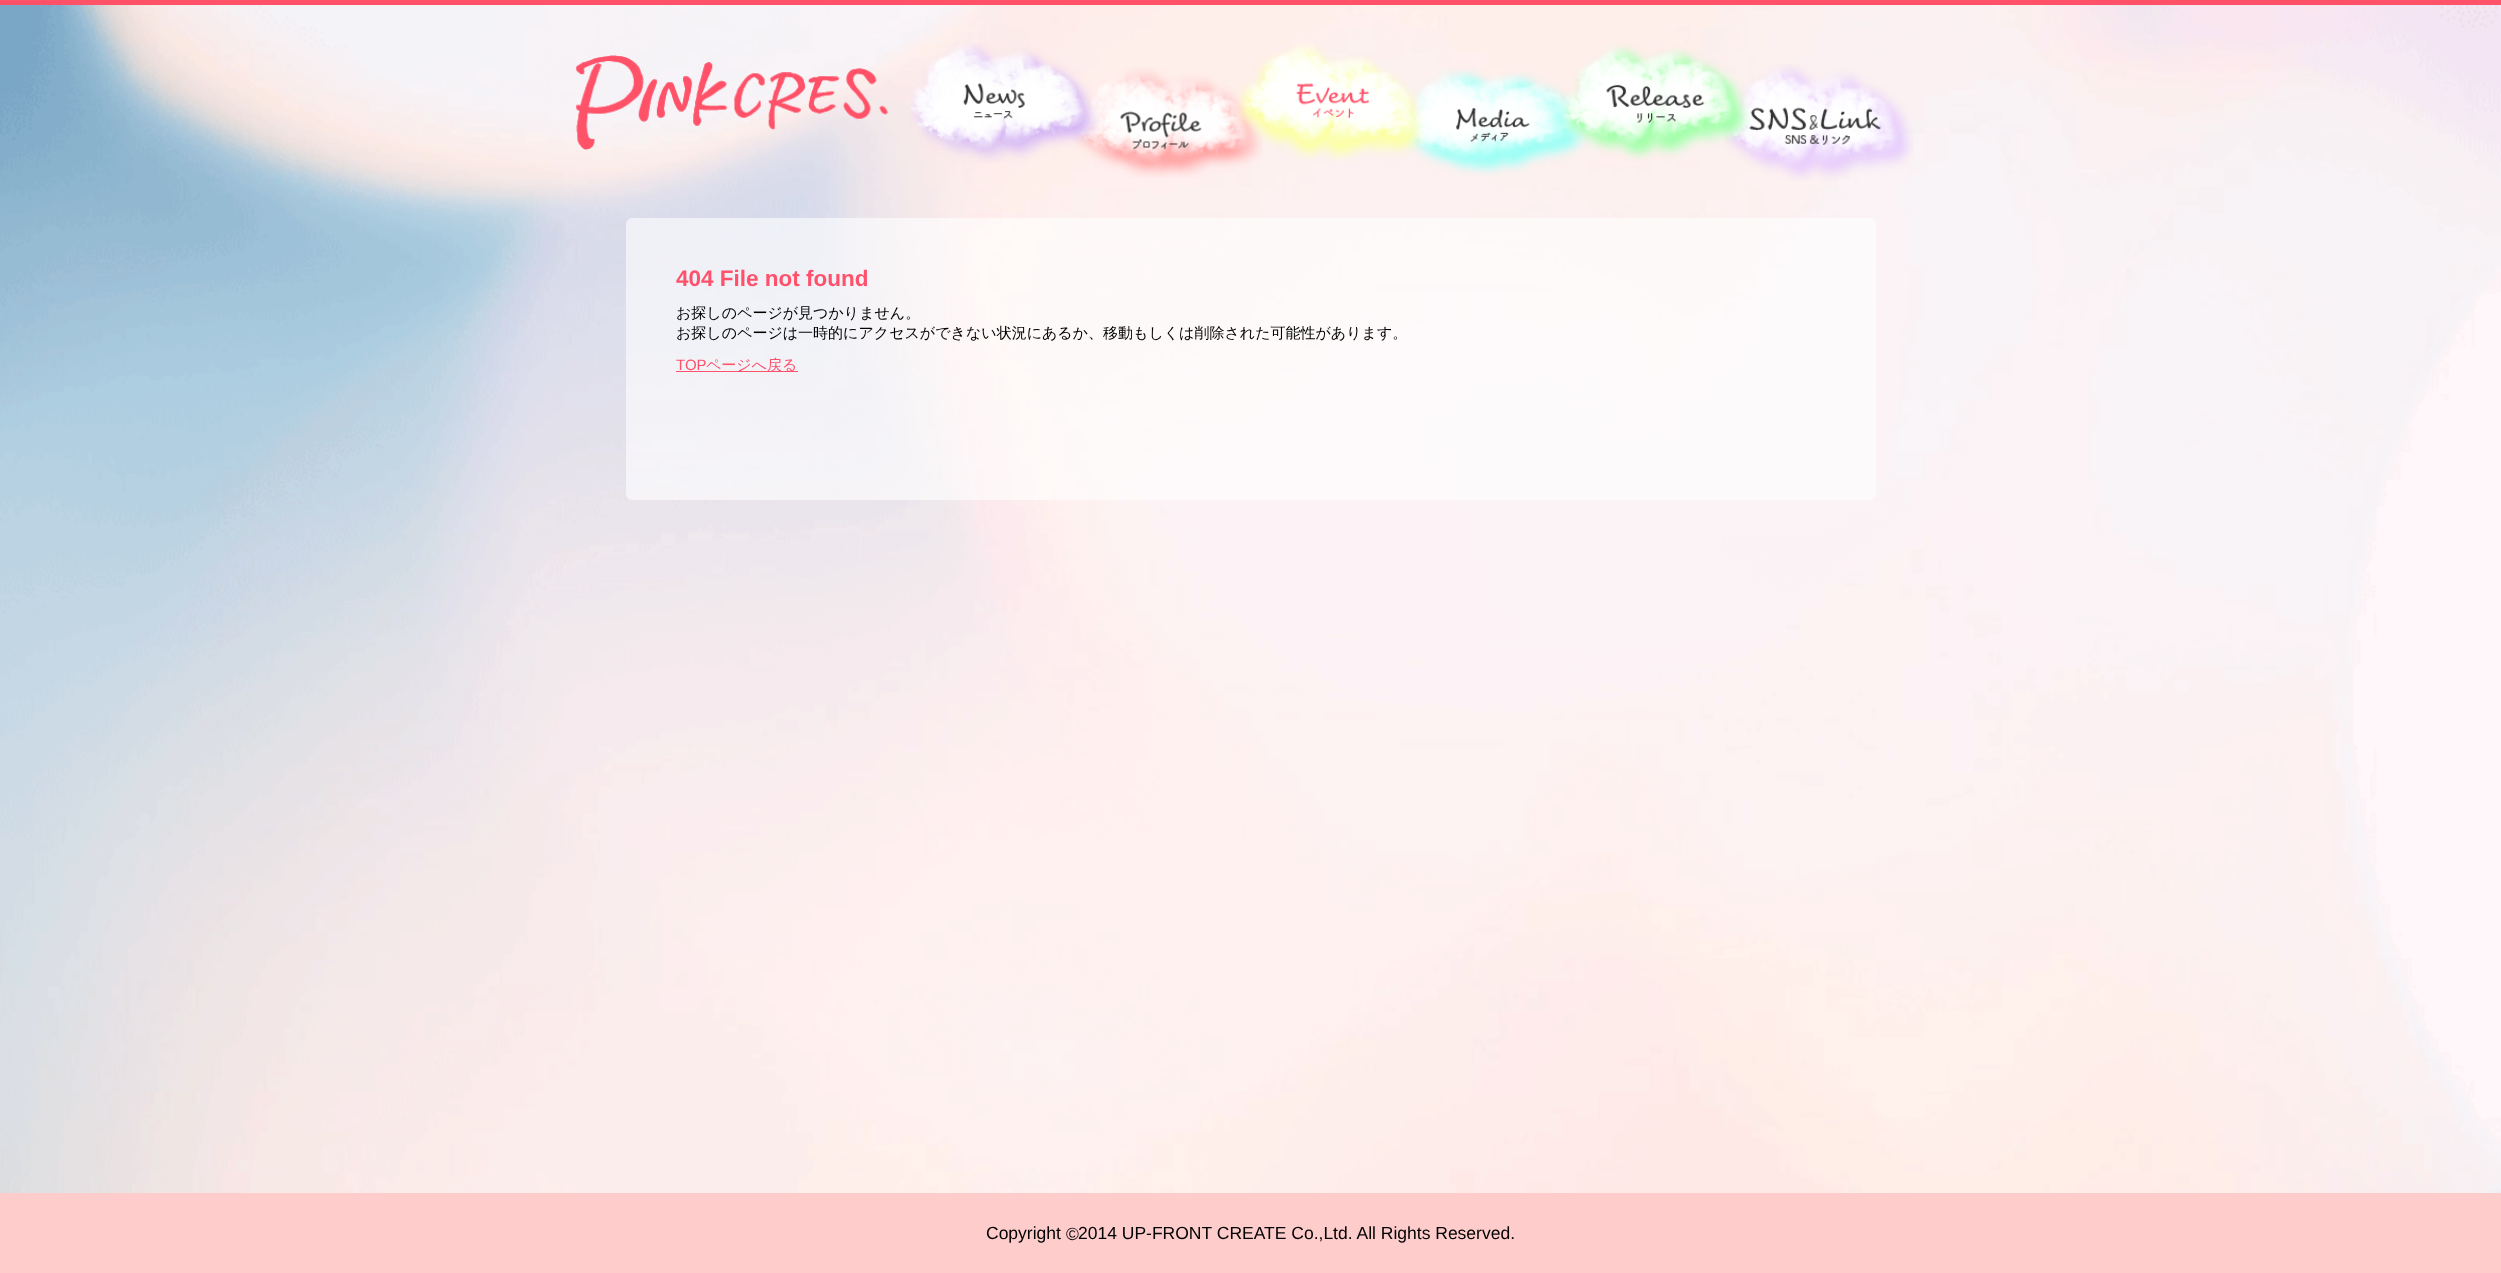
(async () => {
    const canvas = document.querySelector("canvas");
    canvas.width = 2501;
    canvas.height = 1273;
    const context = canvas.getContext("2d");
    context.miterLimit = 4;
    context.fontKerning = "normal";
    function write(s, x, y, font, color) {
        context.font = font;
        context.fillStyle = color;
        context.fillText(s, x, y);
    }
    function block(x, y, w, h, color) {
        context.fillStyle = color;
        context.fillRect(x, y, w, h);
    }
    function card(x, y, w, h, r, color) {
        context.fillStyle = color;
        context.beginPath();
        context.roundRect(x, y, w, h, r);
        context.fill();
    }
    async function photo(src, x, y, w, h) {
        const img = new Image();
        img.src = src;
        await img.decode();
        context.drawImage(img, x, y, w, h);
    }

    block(0, 0, 2501, 1273, "rgb(255, 255, 255)");
    await photo("media/1.png", 0, 5, 2501, 1188);
    block(0, 0, 2501, 5, "rgb(255, 82, 105)");
    await photo("media/2.png", 576, 55, 312, 95);
    await photo("media/4.png", 1073, 67, 190, 111);
    await photo("media/3.png", 910, 43, 189, 120);
    await photo("media/6.png", 1399, 68, 191, 108);
    await photo("media/5.png", 1236, 43, 189, 119);
    await photo("media/8.png", 1724, 64, 190, 117);
    await photo("media/7.png", 1561, 43, 192, 119);
    card(626, 218, 1250, 282, 6, "rgba(255, 255, 255, 0.6)");
    write("404 File not found", 676, 286, "bold 22.5px Liberation Sans", "rgb(255, 81, 108)");
    write("お探しのページが見つかりません。", 676, 318, "500 15px WenQuanYi Zen Hei", "rgb(0, 0, 0)");
    write("お探しのページは一時的にアクセスができない状況にあるか、移動もしくは削除された可能性があります。", 676, 338, "500 15px WenQuanYi Zen Hei", "rgb(0, 0, 0)");
    write("TOP", 676, 370, "15px Liberation Sans", "rgb(255, 81, 108)");
    block(676, 371, 122, 1, "rgb(255, 81, 108)");
    write("ページへ戻る", 706, 370, "500 15px WenQuanYi Zen Hei", "rgb(255, 81, 108)");
    block(0, 1193, 2501, 80, "rgb(255, 204, 204)");
    write("Copyright", 986, 1239, "17.5px Liberation Sans", "rgb(0, 0, 0)");
    write("©", 1066, 1240, "17.5px Liberation Sans", "rgb(0, 0, 0)");
    write("2014 UP-FRONT CREATE Co.,Ltd. All Rights Reserved.", 1078, 1239, "17.5px Liberation Sans", "rgb(0, 0, 0)");
})();
